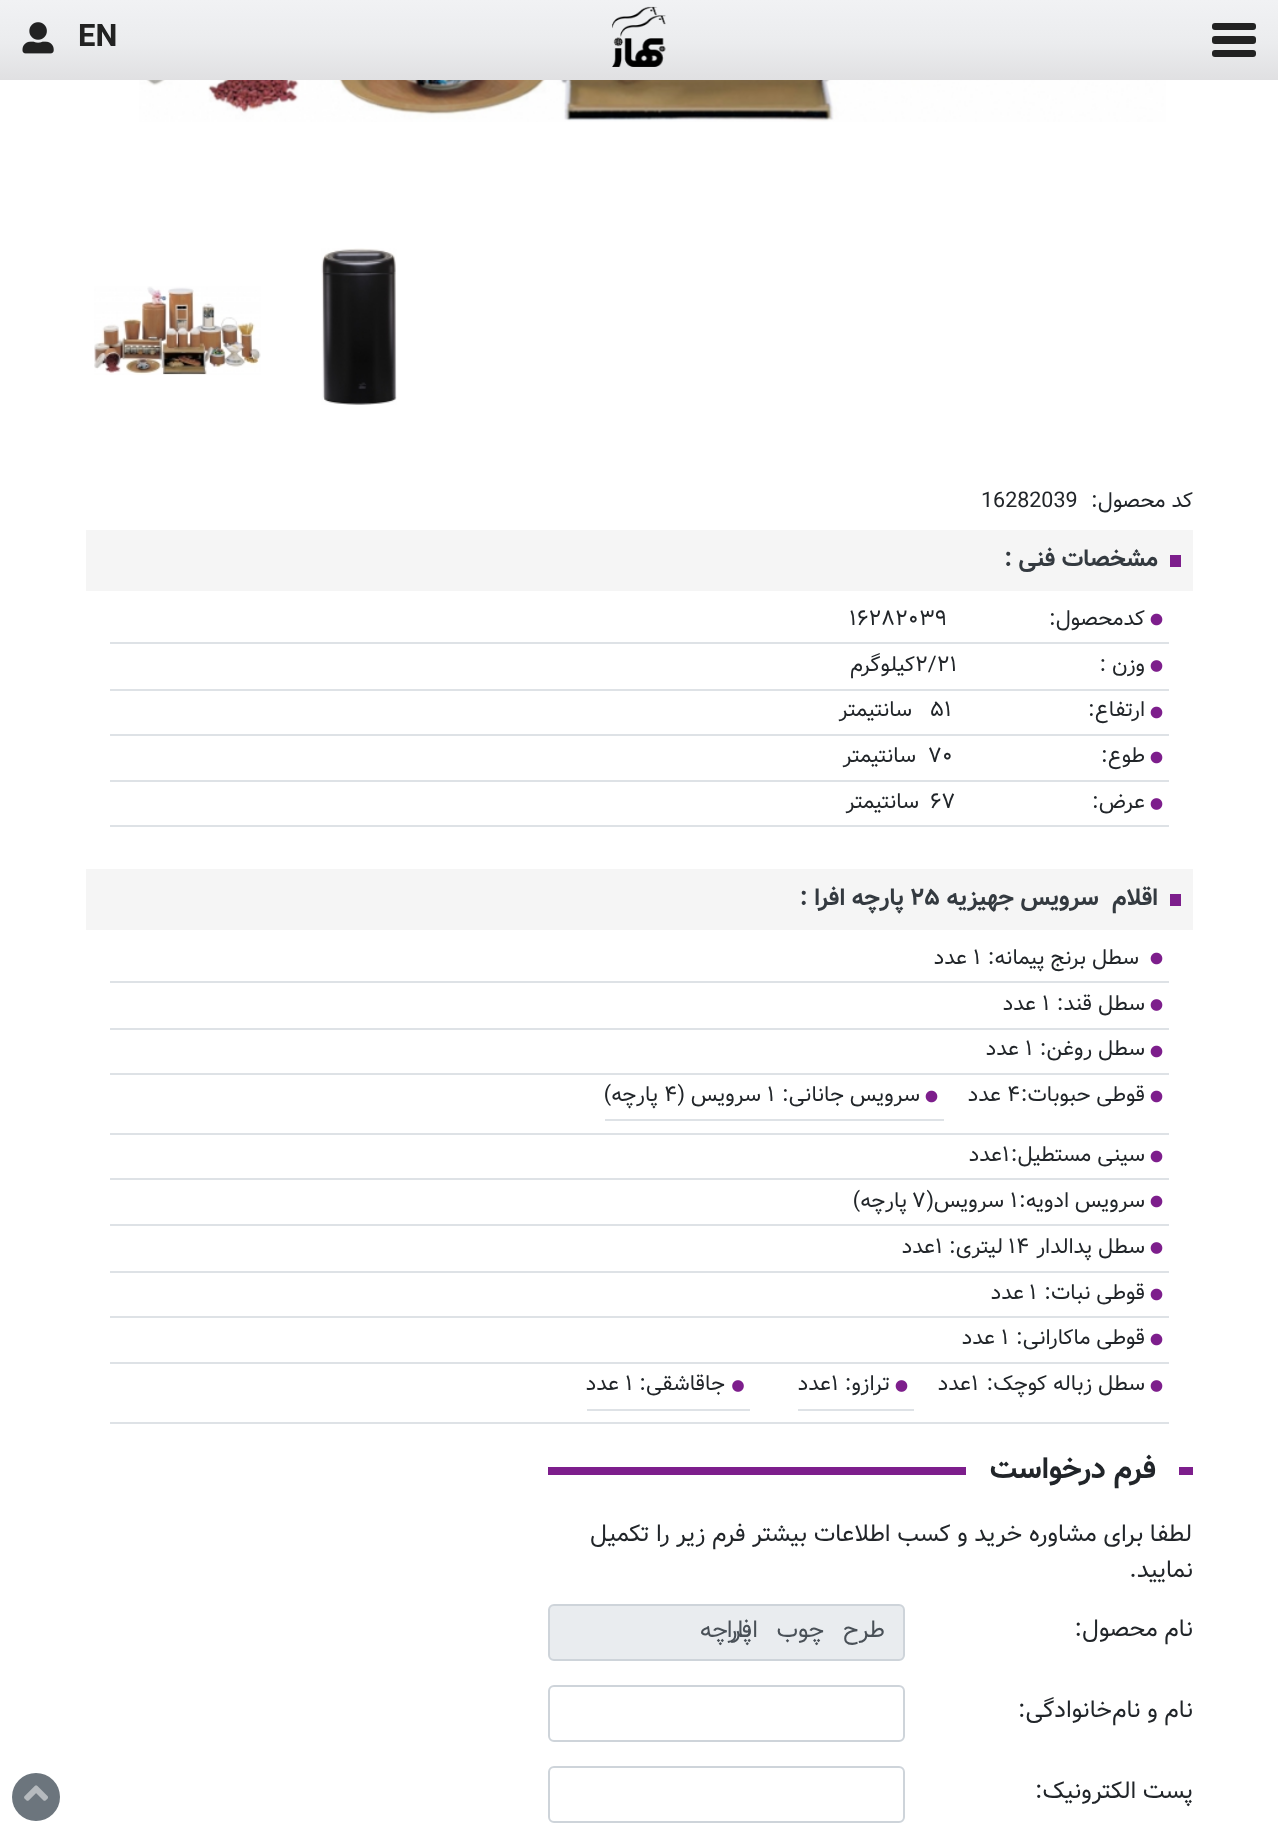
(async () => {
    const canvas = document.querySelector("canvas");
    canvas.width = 1278;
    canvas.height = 1832;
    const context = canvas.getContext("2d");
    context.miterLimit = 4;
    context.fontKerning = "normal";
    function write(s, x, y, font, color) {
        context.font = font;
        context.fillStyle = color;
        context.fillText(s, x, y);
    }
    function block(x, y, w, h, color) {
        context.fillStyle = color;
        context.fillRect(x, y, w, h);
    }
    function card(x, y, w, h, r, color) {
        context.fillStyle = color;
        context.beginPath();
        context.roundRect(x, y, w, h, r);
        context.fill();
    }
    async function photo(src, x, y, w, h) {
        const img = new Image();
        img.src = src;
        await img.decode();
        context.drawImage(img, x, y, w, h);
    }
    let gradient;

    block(0, 0, 1278, 1832, "rgb(255, 255, 255)");
    gradient = context.createLinearGradient(639, 0, 639, 80);
    gradient.addColorStop(0, "rgb(241, 242, 244)");
    gradient.addColorStop(0.54, "rgb(235, 236, 238)");
    gradient.addColorStop(1, "rgb(224, 224, 226)");
    context.fillStyle = gradient;
    context.fillRect(0, 0, 1278, 80);
    card(1212, 36, 44, 8, 3, "rgb(34, 34, 34)");
    card(1212, 23, 44, 7, 3, "rgb(34, 34, 34)");
    card(1212, 50, 44, 7, 3, "rgb(34, 34, 34)");
    await photo("media/1.png", 612, 6, 54, 61);
    write("EN", 78, 46, "bold 31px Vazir", "rgb(34, 34, 34)");
    await photo("media/2.png", 22, 22, 32, 32);
    await photo("media/3.png", 139, 80, 1027, 42);
    await photo("media/4.png", 321, 248, 76, 157);
    await photo("media/5.png", 94, 286, 167, 89);
    context.direction = "rtl";
    write("کد محصول:", 1193, 507, "21.5px Vazir", "rgb(33, 37, 41)");
    context.direction = "ltr";
    write("16282039", 981, 507, "21.5px Vazir", "rgb(33, 37, 41)");
    block(86, 530, 1107, 61, "rgb(245, 245, 245)");
    block(1170, 555, 11, 12, "rgb(125, 30, 140)");
    context.direction = "rtl";
    write("مشخصات فنی :", 1158, 566, "bold 24px Vazir", "rgb(52, 58, 64)");
    block(110, 642, 1059, 2, "rgb(222, 226, 230)");
    await photo("media/6.png", 1150, 613, 13, 13);
    write("کدمحصول:", 1145, 625, "21.5px Vazir", "rgb(33, 37, 41)");
    context.direction = "ltr";
    write("۱۶۲۸۲۰۳۹", 849, 625, "21.5px Vazir", "rgb(33, 37, 41)");
    block(110, 689, 1059, 2, "rgb(222, 226, 230)");
    await photo("media/7.png", 1150, 660, 13, 12);
    context.direction = "rtl";
    write("وزن :", 1145, 671, "21.5px Vazir", "rgb(33, 37, 41)");
    context.direction = "ltr";
    write("۲/۲۱", 915, 671, "21.5px Vazir", "rgb(33, 37, 41)");
    context.direction = "rtl";
    write("کیلوگرم", 915, 671, "21.5px Vazir", "rgb(33, 37, 41)");
    block(110, 734, 1059, 2, "rgb(222, 226, 230)");
    await photo("media/6.png", 1150, 706, 13, 13);
    write("ارتفاع:", 1145, 716, "21.5px Vazir", "rgb(33, 37, 41)");
    context.direction = "ltr";
    write("۵۱", 930, 716, "21.5px Vazir", "rgb(33, 37, 41)");
    context.direction = "rtl";
    write("سانتیمتر", 912, 716, "21.5px Vazir", "rgb(33, 37, 41)");
    block(110, 780, 1059, 2, "rgb(222, 226, 230)");
    await photo("media/6.png", 1150, 751, 13, 13);
    write("طوع:", 1145, 762, "21.5px Vazir", "rgb(33, 37, 41)");
    context.direction = "ltr";
    write("۷۰", 928, 762, "21.5px Vazir", "rgb(33, 37, 41)");
    context.direction = "rtl";
    write("سانتیمتر", 916, 762, "21.5px Vazir", "rgb(33, 37, 41)");
    block(110, 825, 1059, 2, "rgb(222, 226, 230)");
    await photo("media/7.png", 1150, 798, 13, 12);
    write("عرض:", 1145, 808, "21.5px Vazir", "rgb(33, 37, 41)");
    context.direction = "ltr";
    write("۶۷", 930, 808, "21.5px Vazir", "rgb(33, 37, 41)");
    context.direction = "rtl";
    write("سانتیمتر", 919, 808, "21.5px Vazir", "rgb(33, 37, 41)");
    block(86, 869, 1107, 61, "rgb(245, 245, 245)");
    block(1170, 894, 11, 12, "rgb(125, 30, 140)");
    write("اقلام  سرویس جهیزیه", 1158, 905, "bold 24px Vazir", "rgb(52, 58, 64)");
    context.direction = "ltr";
    write("۲۵", 910, 905, "bold 24px Vazir", "rgb(52, 58, 64)");
    context.direction = "rtl";
    write("پارچه افرا :", 904, 905, "bold 24px Vazir", "rgb(52, 58, 64)");
    block(110, 981, 1059, 2, "rgb(222, 226, 230)");
    await photo("media/6.png", 1150, 952, 13, 13);
    write("سطل برنج پیمانه:", 1139, 964, "21.5px Vazir", "rgb(33, 37, 41)");
    context.direction = "ltr";
    write("۱", 973, 964, "21.5px Vazir", "rgb(33, 37, 41)");
    context.direction = "rtl";
    write("عدد", 967, 964, "21.5px Vazir", "rgb(33, 37, 41)");
    block(110, 1028, 1059, 2, "rgb(222, 226, 230)");
    await photo("media/7.png", 1150, 999, 13, 12);
    write("سطل قند:", 1145, 1010, "21.5px Vazir", "rgb(33, 37, 41)");
    context.direction = "ltr";
    write("۱", 1042, 1010, "21.5px Vazir", "rgb(33, 37, 41)");
    context.direction = "rtl";
    write("عدد", 1036, 1010, "21.5px Vazir", "rgb(33, 37, 41)");
    block(110, 1073, 1059, 2, "rgb(222, 226, 230)");
    await photo("media/6.png", 1150, 1045, 13, 13);
    write("سطل روغن:", 1145, 1055, "21.5px Vazir", "rgb(33, 37, 41)");
    context.direction = "ltr";
    write("۱", 1025, 1055, "21.5px Vazir", "rgb(33, 37, 41)");
    context.direction = "rtl";
    write("عدد", 1019, 1055, "21.5px Vazir", "rgb(33, 37, 41)");
    block(110, 1133, 1059, 2, "rgb(222, 226, 230)");
    await photo("media/6.png", 1150, 1090, 13, 13);
    write("قوطی حبوبات:", 1145, 1101, "21.5px Vazir", "rgb(33, 37, 41)");
    context.direction = "ltr";
    write("۴", 1007, 1101, "21.5px Vazir", "rgb(33, 37, 41)");
    context.direction = "rtl";
    write("عدد", 1001, 1101, "21.5px Vazir", "rgb(33, 37, 41)");
    block(605, 1119, 339, 2, "rgb(222, 226, 230)");
    await photo("media/6.png", 925, 1090, 13, 13);
    write("سرویس جانانی:", 920, 1101, "21.5px Vazir", "rgb(33, 37, 41)");
    context.direction = "ltr";
    write("۱", 767, 1101, "21.5px Vazir", "rgb(33, 37, 41)");
    context.direction = "rtl";
    write("سرویس (", 761, 1101, "21.5px Vazir", "rgb(33, 37, 41)");
    context.direction = "ltr";
    write("۴", 664, 1101, "21.5px Vazir", "rgb(33, 37, 41)");
    context.direction = "rtl";
    write("پارچه)", 658, 1101, "21.5px Vazir", "rgb(33, 37, 41)");
    block(110, 1178, 1059, 2, "rgb(222, 226, 230)");
    await photo("media/6.png", 1150, 1150, 13, 13);
    write("سینی مستطیل:", 1145, 1161, "21.5px Vazir", "rgb(33, 37, 41)");
    context.direction = "ltr";
    write("۱", 1002, 1161, "21.5px Vazir", "rgb(33, 37, 41)");
    context.direction = "rtl";
    write("عدد", 1002, 1161, "21.5px Vazir", "rgb(33, 37, 41)");
    block(110, 1224, 1059, 2, "rgb(222, 226, 230)");
    await photo("media/6.png", 1150, 1195, 13, 13);
    write("سرویس ادویه:", 1145, 1207, "21.5px Vazir", "rgb(33, 37, 41)");
    context.direction = "ltr";
    write("۱", 1010, 1207, "21.5px Vazir", "rgb(33, 37, 41)");
    context.direction = "rtl";
    write("سرویس(", 1004, 1207, "21.5px Vazir", "rgb(33, 37, 41)");
    context.direction = "ltr";
    write("۷", 912, 1207, "21.5px Vazir", "rgb(33, 37, 41)");
    context.direction = "rtl";
    write("پارچه)", 907, 1207, "21.5px Vazir", "rgb(33, 37, 41)");
    block(110, 1271, 1059, 2, "rgb(222, 226, 230)");
    await photo("media/7.png", 1150, 1242, 13, 12);
    write("سطل پدالدار", 1145, 1253, "21.5px Vazir", "rgb(33, 37, 41)");
    context.direction = "ltr";
    write("۱۴", 1008, 1253, "21.5px Vazir", "rgb(33, 37, 41)");
    context.direction = "rtl";
    write("لیتری:", 1003, 1253, "21.5px Vazir", "rgb(33, 37, 41)");
    context.direction = "ltr";
    write("۱", 935, 1253, "21.5px Vazir", "rgb(33, 37, 41)");
    context.direction = "rtl";
    write("عدد", 935, 1253, "21.5px Vazir", "rgb(33, 37, 41)");
    block(110, 1316, 1059, 2, "rgb(222, 226, 230)");
    await photo("media/6.png", 1150, 1288, 13, 13);
    write("قوطی نبات:", 1145, 1299, "21.5px Vazir", "rgb(33, 37, 41)");
    context.direction = "ltr";
    write("۱", 1029, 1299, "21.5px Vazir", "rgb(33, 37, 41)");
    context.direction = "rtl";
    write("عدد", 1024, 1299, "21.5px Vazir", "rgb(33, 37, 41)");
    block(110, 1362, 1059, 2, "rgb(222, 226, 230)");
    await photo("media/6.png", 1150, 1333, 13, 13);
    write("قوطی ماکارانی:", 1145, 1344, "21.5px Vazir", "rgb(33, 37, 41)");
    context.direction = "ltr";
    write("۱", 1001, 1344, "21.5px Vazir", "rgb(33, 37, 41)");
    context.direction = "rtl";
    write("عدد", 995, 1344, "21.5px Vazir", "rgb(33, 37, 41)");
    block(110, 1422, 1059, 2, "rgb(222, 226, 230)");
    await photo("media/7.png", 1150, 1380, 13, 12);
    write("سطل زباله کوچک:", 1145, 1390, "21.5px Vazir", "rgb(33, 37, 41)");
    context.direction = "ltr";
    write("۱", 971, 1390, "21.5px Vazir", "rgb(33, 37, 41)");
    context.direction = "rtl";
    write("عدد", 971, 1390, "21.5px Vazir", "rgb(33, 37, 41)");
    block(798, 1409, 116, 2, "rgb(222, 226, 230)");
    await photo("media/7.png", 895, 1380, 13, 12);
    write("ترازو:", 890, 1390, "21.5px Vazir", "rgb(33, 37, 41)");
    context.direction = "ltr";
    write("۱", 831, 1390, "21.5px Vazir", "rgb(33, 37, 41)");
    context.direction = "rtl";
    write("عدد", 831, 1390, "21.5px Vazir", "rgb(33, 37, 41)");
    block(587, 1409, 163, 2, "rgb(222, 226, 230)");
    await photo("media/8.png", 732, 1380, 12, 12);
    write("جاقاشقی:", 725, 1390, "21.5px Vazir", "rgb(33, 37, 41)");
    context.direction = "ltr";
    write("۱", 625, 1390, "21.5px Vazir", "rgb(33, 37, 41)");
    context.direction = "rtl";
    write("عدد", 619, 1390, "21.5px Vazir", "rgb(33, 37, 41)");
    block(1179, 1467, 14, 8, "rgb(125, 30, 140)");
    write("فرم درخواست", 1156, 1478, "bold 30px Vazir", "rgb(33, 37, 41)");
    block(548, 1467, 418, 8, "rgb(125, 30, 140)");
    write("لطفا برای مشاوره خرید و کسب اطلاعات بیشتر فرم زیر را تکمیل", 1192, 1541, "24px Vazir", "rgb(33, 37, 41)");
    write("نمایید.", 1193, 1577, "24px Vazir", "rgb(33, 37, 41)");
    write("نام محصول:", 1193, 1636, "24px Vazir", "rgb(33, 37, 41)");
    context.fillStyle = "rgb(233, 236, 239)";
    context.beginPath();
    context.roundRect(549, 1605, 355, 55, 5);
    context.fill();
    context.strokeStyle = "rgb(206, 212, 218)";
    context.lineWidth = 2;
    context.stroke();
    write("پارچه", 752, 1637, "24px Vazir", "rgb(73, 80, 87)");
    context.wordSpacing = "12px";
    write("طرح چوب افرا", 885, 1637, "24px Vazir", "rgb(73, 80, 87)");
    context.wordSpacing = "0px";
    write("نام و نام‌خانوادگی:", 1193, 1717, "24px Vazir", "rgb(33, 37, 41)");
    context.beginPath();
    context.roundRect(549, 1686, 355, 55, 5);
    context.stroke();
    write("پست الکترونیک:", 1193, 1798, "24px Vazir", "rgb(33, 37, 41)");
    context.beginPath();
    context.roundRect(549, 1767, 355, 55, 5);
    context.stroke();
    context.fillStyle = "rgb(108, 117, 125)";
    context.beginPath();
    context.arc(36, 1797, 24, 0, Math.PI * 2);
    context.fill();
    await photo("media/9.png", 24, 1785, 24, 16);
})();
